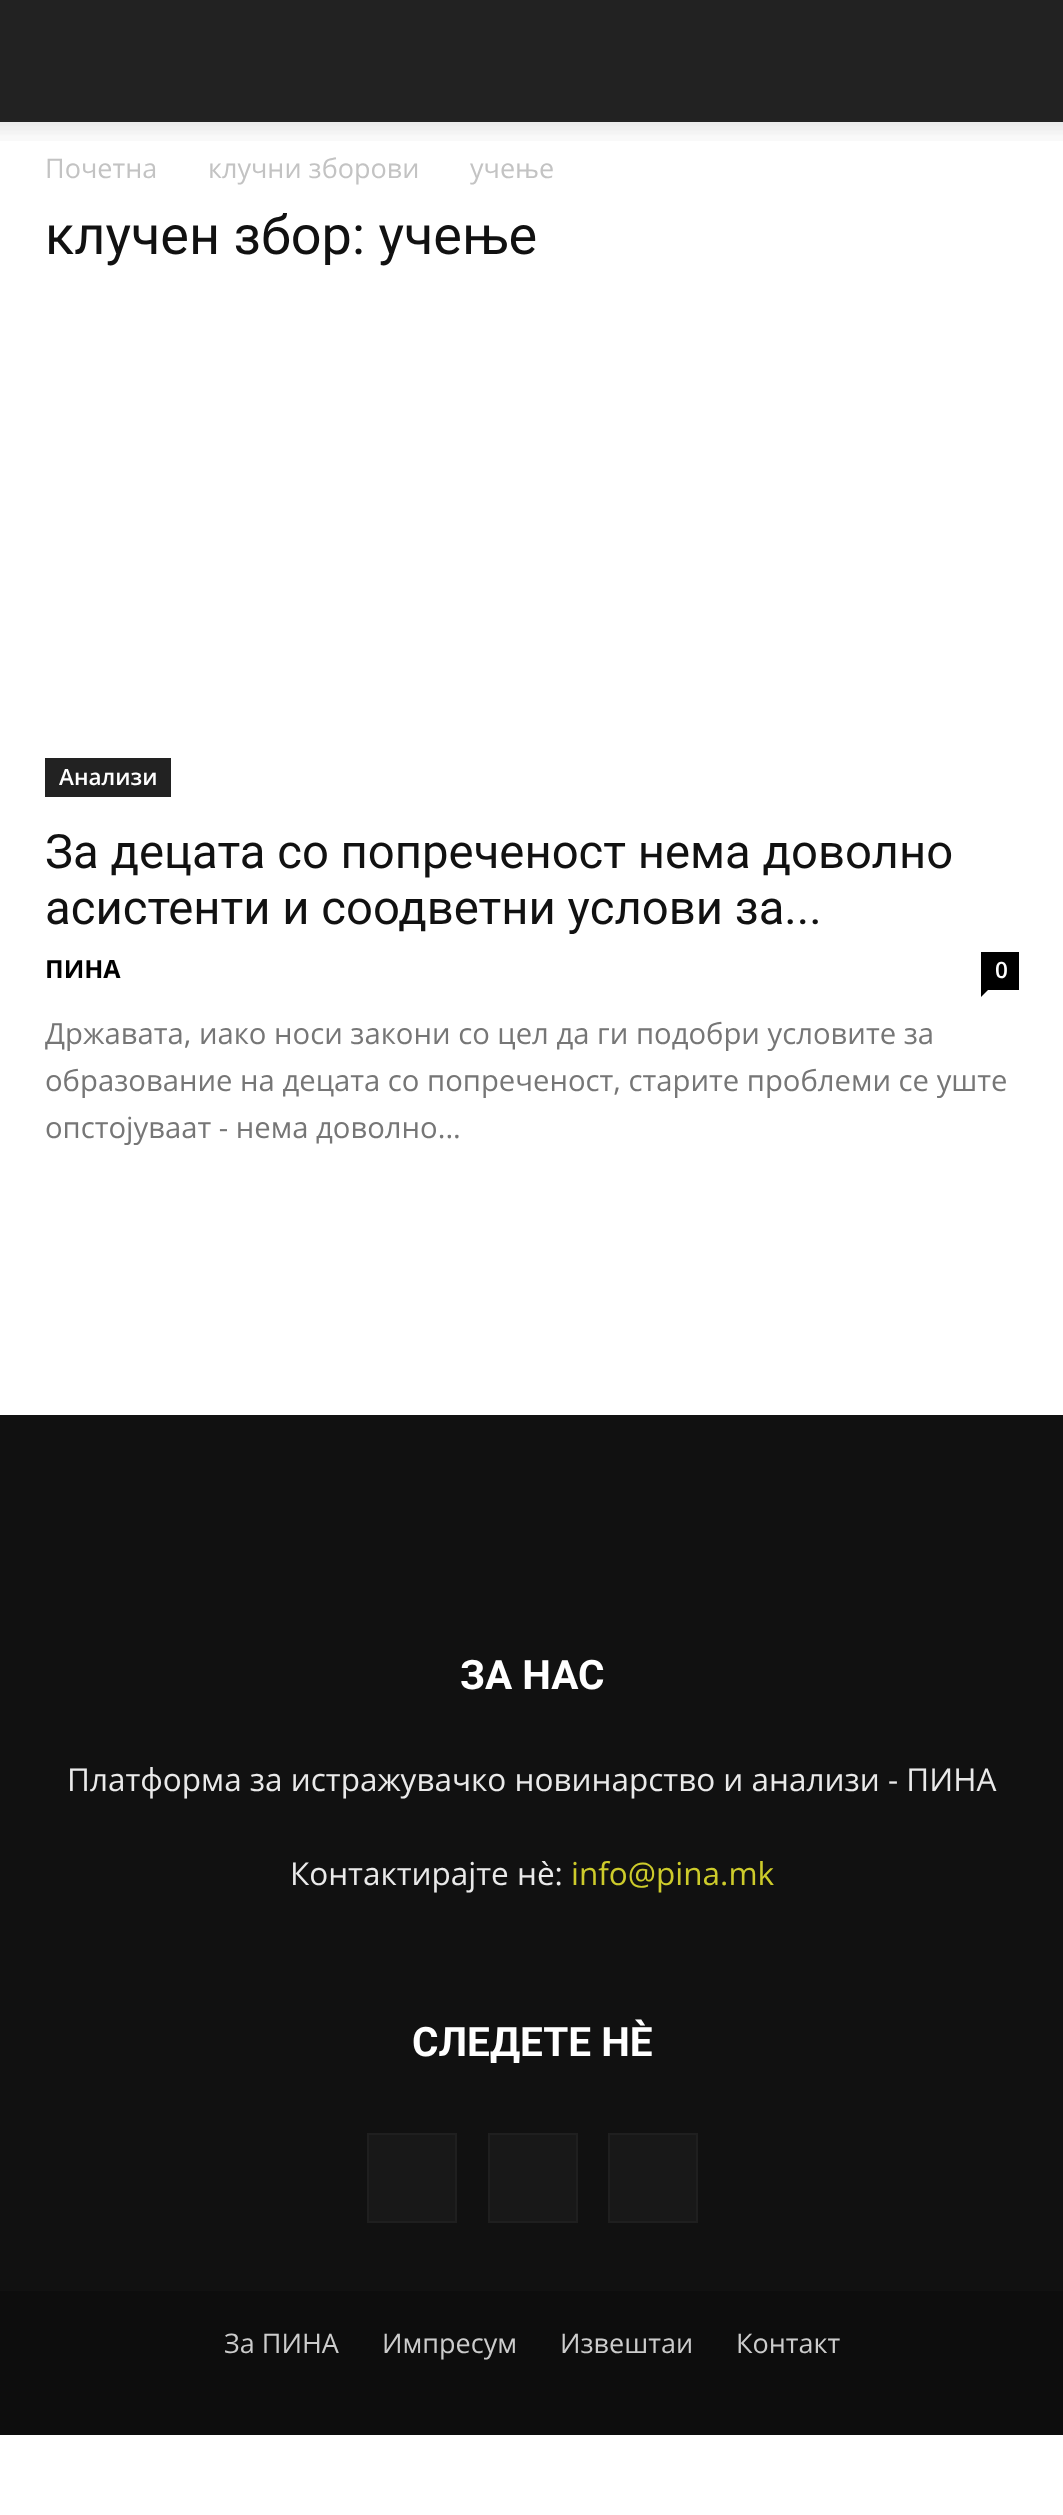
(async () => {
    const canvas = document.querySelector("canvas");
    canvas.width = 1063;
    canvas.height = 2515;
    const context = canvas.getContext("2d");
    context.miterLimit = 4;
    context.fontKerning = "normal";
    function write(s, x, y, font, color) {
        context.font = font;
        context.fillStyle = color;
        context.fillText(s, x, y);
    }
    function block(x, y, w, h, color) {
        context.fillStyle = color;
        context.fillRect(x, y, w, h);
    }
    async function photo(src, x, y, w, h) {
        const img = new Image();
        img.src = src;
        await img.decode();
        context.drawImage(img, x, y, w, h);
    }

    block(0, 0, 1063, 2515, "rgb(255, 255, 255)");
    block(0, 0, 1063, 122, "rgb(34, 34, 34)");
    await photo("media/1.png", 0, 122, 1063, 19);
    write("Почетна", 45, 178, "27px Open Sans", "rgb(195, 195, 195)");
    write("клучни зборови", 208, 178, "27px Open Sans", "rgb(195, 195, 195)");
    write("учење", 470, 178, "27px Open Sans", "rgb(195, 195, 195)");
    write("клучен збор: учење", 45, 254, "54px Roboto", "rgb(17, 17, 17)");
    block(45, 758, 126, 39, "rgb(34, 34, 34)");
    write("Анализи", 59, 785, "600 22.5px Open Sans", "rgb(255, 255, 255)");
    write("За децата со попреченост нема доволно", 45, 868, "47.25px Roboto", "rgb(17, 17, 17)");
    write("асистенти и соодветни услови за...", 45, 924, "47.25px Roboto", "rgb(17, 17, 17)");
    write("ПИНА", 45, 978, "bold 25px Open Sans", "rgb(0, 0, 0)");
    block(981, 952, 38, 38, "rgb(0, 0, 0)");
    write("0", 995, 978, "600 22.5px Open Sans", "rgb(255, 255, 255)");
    context.fillStyle = "rgb(0, 0, 0)";
    context.beginPath();
    context.moveTo(981, 990);
    context.lineTo(988, 990);
    context.lineTo(981, 997);
    context.closePath();
    context.fill();
    write("Државата, иако носи закони со цел да ги подобри условите за", 45, 1044, "29.25px Open Sans", "rgb(118, 118, 118)");
    write("образование на децата со попреченост, старите проблеми се уште", 45, 1091, "29.25px Open Sans", "rgb(118, 118, 118)");
    write("опстојуваат - нема доволно...", 45, 1138, "29.25px Open Sans", "rgb(118, 118, 118)");
    block(0, 1415, 1063, 876, "rgb(17, 17, 17)");
    write("ЗА НАС", 460, 1689, "bold 40.5px Roboto", "rgb(255, 255, 255)");
    write("Платформа за истражувачко новинарство и анализи - ПИНА", 67, 1791, "31.5px Open Sans", "rgb(234, 234, 234)");
    write("Контактирајте нѐ:", 290, 1885, "31.5px Open Sans", "rgb(234, 234, 234)");
    write("info@pina.mk", 571, 1885, "31.5px Open Sans", "rgb(205, 203, 43)");
    write("СЛЕДЕТЕ НЀ", 412, 2056, "bold 40.5px Roboto", "rgb(255, 255, 255)");
    context.fillStyle = "rgb(24, 24, 24)";
    context.beginPath();
    context.rect(368, 2134, 88, 88);
    context.fill();
    context.strokeStyle = "rgb(31, 31, 31)";
    context.lineWidth = 2;
    context.stroke();
    context.beginPath();
    context.rect(489, 2134, 88, 88);
    context.fill();
    context.stroke();
    context.beginPath();
    context.rect(609, 2134, 88, 88);
    context.fill();
    context.stroke();
    block(0, 2291, 1063, 144, "rgb(13, 13, 13)");
    write("За ПИНА", 224, 2353, "27px Open Sans", "rgb(204, 204, 204)");
    write("Импресум", 382, 2353, "27px Open Sans", "rgb(204, 204, 204)");
    write("Извештаи", 560, 2353, "27px Open Sans", "rgb(204, 204, 204)");
    write("Контакт", 736, 2353, "27px Open Sans", "rgb(204, 204, 204)");
})();
